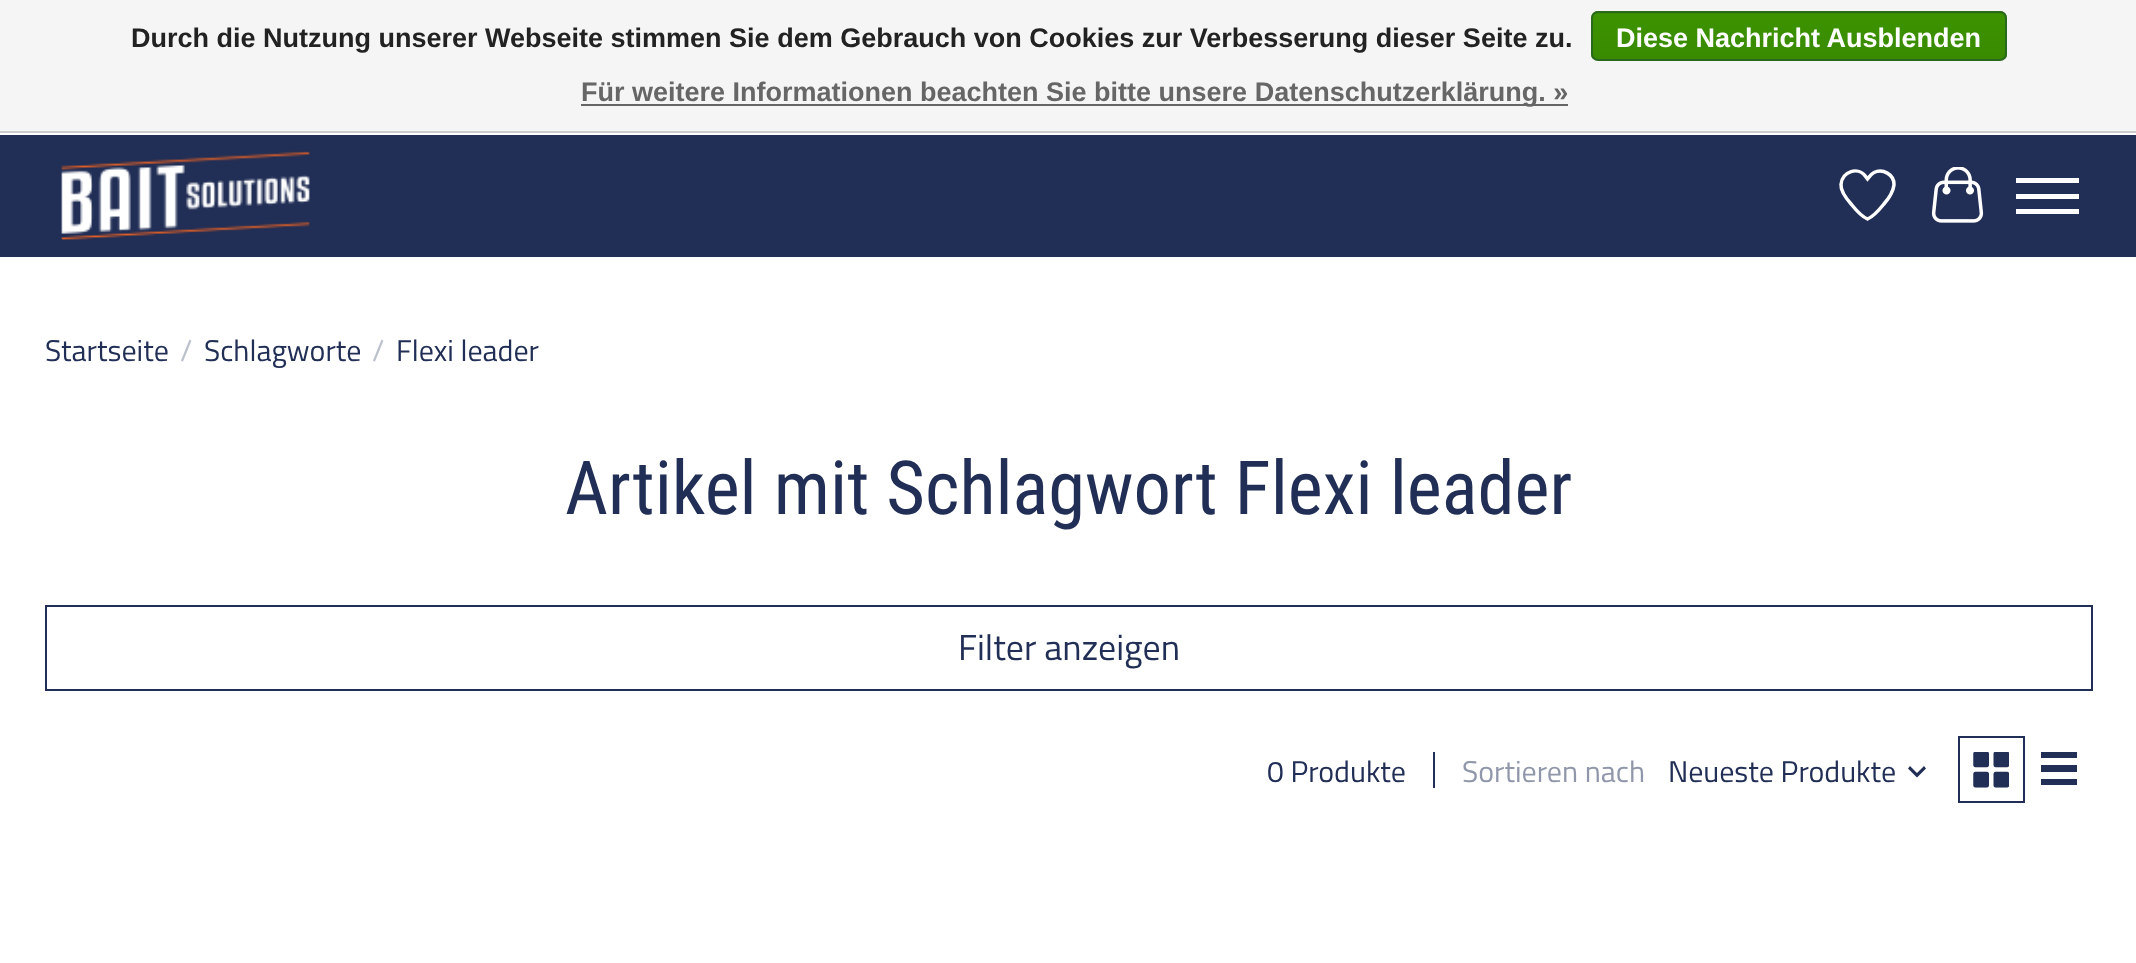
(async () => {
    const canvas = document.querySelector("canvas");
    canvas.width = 2136;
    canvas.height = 963;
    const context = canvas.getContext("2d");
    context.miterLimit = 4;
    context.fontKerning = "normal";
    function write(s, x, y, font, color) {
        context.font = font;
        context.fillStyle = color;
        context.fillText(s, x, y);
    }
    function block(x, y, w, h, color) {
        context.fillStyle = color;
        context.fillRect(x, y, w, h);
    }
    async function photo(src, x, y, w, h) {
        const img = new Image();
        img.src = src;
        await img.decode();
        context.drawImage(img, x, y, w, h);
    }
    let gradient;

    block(0, 0, 2136, 963, "rgb(255, 255, 255)");
    block(0, 0, 2136, 131, "rgb(245, 245, 245)");
    block(0, 131, 2136, 2, "rgb(204, 204, 204)");
    write("Durch die Nutzung unserer Webseite stimmen Sie dem Gebrauch von Cookies zur Verbesserung dieser Seite zu.", 131, 47, "bold 27px Liberation Sans", "rgb(34, 34, 34)");
    context.save();
    context.beginPath();
    context.roundRect(1591, 11, 416, 50, 7);
    context.clip();
    gradient = context.createLinearGradient(1799, -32, 1799, 14);
    gradient.addColorStop(0, "rgb(60, 147, 0)");
    gradient.addColorStop(1, "rgb(57, 138, 0)");
    context.fillStyle = gradient;
    context.fillRect(1591, 11, 416, 3);
    gradient = context.createLinearGradient(1799, 13, 1799, 59);
    gradient.addColorStop(0, "rgb(60, 147, 0)");
    gradient.addColorStop(1, "rgb(57, 138, 0)");
    context.fillStyle = gradient;
    context.fillRect(1591, 14, 416, 45);
    context.restore();
    context.beginPath();
    context.roundRect(1592, 12, 414, 48, 6);
    context.strokeStyle = "rgb(41, 105, 29)";
    context.lineWidth = 2;
    context.stroke();
    write("Diese Nachricht Ausblenden", 1616, 47, "bold 27px Liberation Sans", "rgb(255, 255, 255)");
    block(581, 104, 987, 2, "rgb(102, 102, 102)");
    write("Für weitere Informationen beachten Sie bitte unsere Datenschutzerklärung. »", 581, 101, "bold 27px Liberation Sans", "rgb(102, 102, 102)");
    block(0, 135, 2136, 122, "rgb(33, 46, 85)");
    await photo("media/1.png", 61, 151, 249, 89);
    context.beginPath();
    context.moveTo(1866, 177);
    context.lineTo(1867.5, 179);
    context.bezierCurveTo(1869.5, 176.5, 1871, 174, 1874, 172.5);
    context.bezierCurveTo(1882.5, 168, 1894.5, 174.5, 1894, 185);
    context.bezierCurveTo(1893, 192.5, 1888, 199.5, 1883.5, 204.5);
    context.bezierCurveTo(1879.5, 209.5, 1873.5, 216.5, 1867.5, 219);
    context.bezierCurveTo(1861.5, 216.5, 1855.5, 209.5, 1851.5, 204.5);
    context.bezierCurveTo(1847.5, 200, 1840.5, 191, 1841, 184.5);
    context.bezierCurveTo(1842, 171, 1858.5, 166, 1866, 177);
    context.closePath();
    context.strokeStyle = "rgb(255, 255, 255)";
    context.lineWidth = 3.5;
    context.stroke();
    await photo("media/2.png", 1931, 167, 53, 56);
    block(2016, 194, 63, 5, "rgb(255, 255, 255)");
    block(2016, 178, 63, 5, "rgb(255, 255, 255)");
    block(2016, 209, 63, 5, "rgb(255, 255, 255)");
    write("Startseite", 45, 361, "30px Titillium Web", "rgb(33, 46, 85)");
    write("/", 180, 361, "30px Titillium Web", "rgb(188, 192, 204)");
    write("Schlagworte", 204, 361, "30px Titillium Web", "rgb(33, 46, 85)");
    write("/", 372, 361, "30px Titillium Web", "rgb(188, 192, 204)");
    write("Flexi leader", 396, 361, "30px Titillium Web", "rgb(33, 46, 85)");
    write("Artikel mit Schlagwort Flexi leader", 565, 514, "74.6px Roboto Condensed", "rgb(33, 46, 85)");
    context.strokeStyle = "rgb(33, 46, 85)";
    context.lineWidth = 2;
    context.strokeRect(46, 606, 2046, 84);
    write("Filter anzeigen", 958, 660, "36px Titillium Web", "rgb(33, 46, 85)");
    write("0 Produkte", 1267, 782, "30px Titillium Web", "rgb(33, 46, 85)");
    block(1433, 752, 2, 36, "rgb(33, 46, 85)");
    write("Sortieren nach", 1462, 782, "30px Titillium Web", "rgb(144, 151, 170)");
    write("Neueste Produkte", 1668, 782, "30px Titillium Web", "rgb(33, 46, 85)");
    context.beginPath();
    context.moveTo(1917, 777.5);
    context.lineTo(1908, 768.5);
    context.lineTo(1910, 766);
    context.lineTo(1917, 773);
    context.lineTo(1924, 766);
    context.lineTo(1926, 768.5);
    context.closePath();
    context.fill();
    context.strokeRect(1959, 737, 65, 65);
    await photo("media/3.png", 1973, 752, 36, 36);
    block(2041, 752, 36, 6, "rgb(33, 46, 85)");
    block(2041, 765, 36, 7, "rgb(33, 46, 85)");
    block(2041, 779, 36, 6, "rgb(33, 46, 85)");
})();
